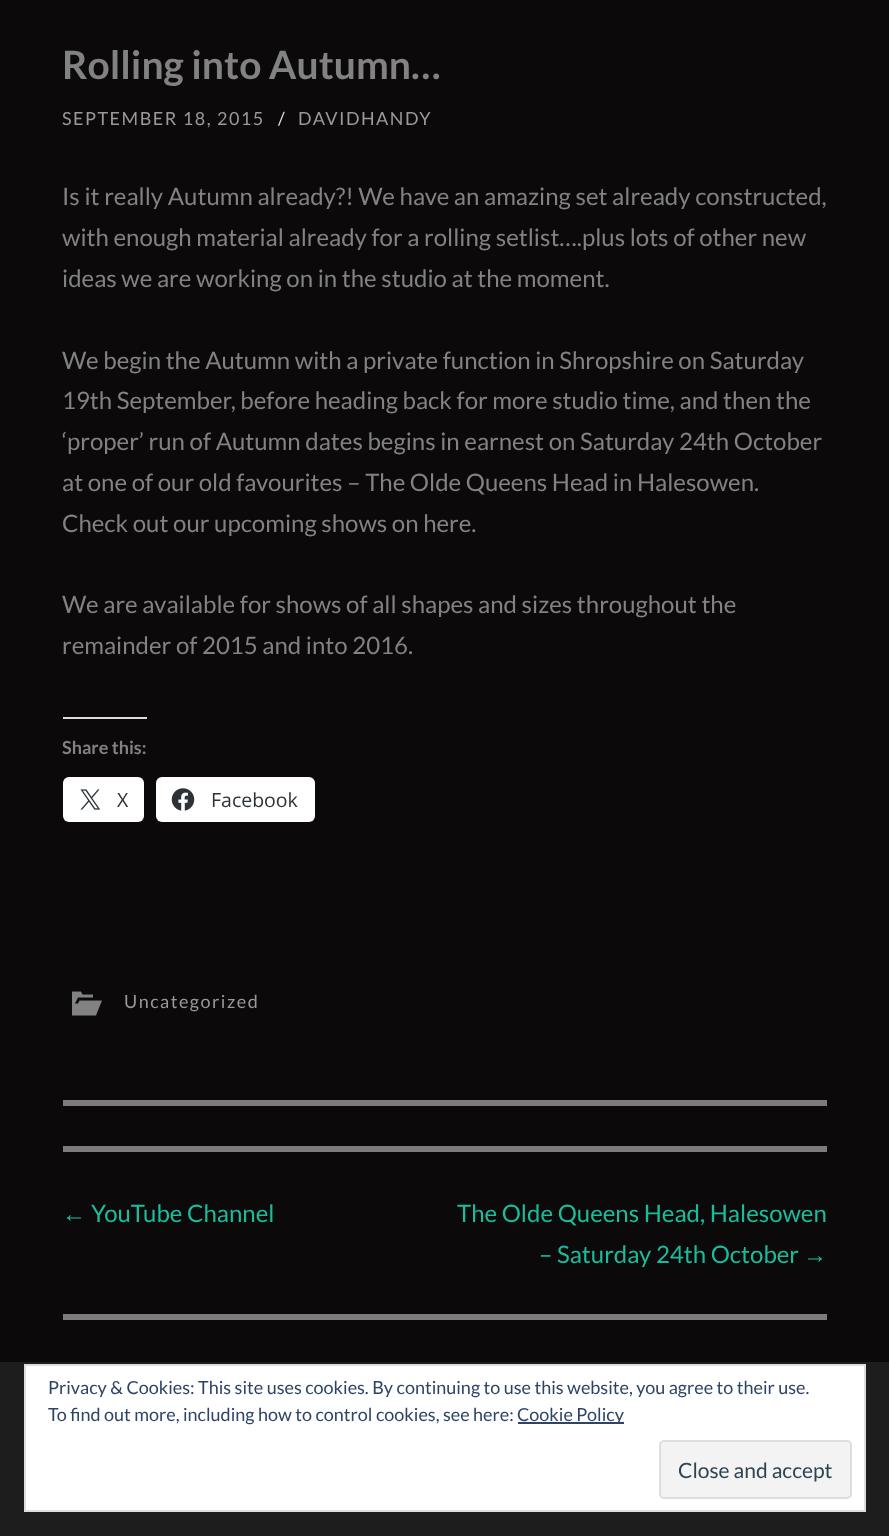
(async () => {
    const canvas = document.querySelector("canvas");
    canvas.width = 889;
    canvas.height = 1536;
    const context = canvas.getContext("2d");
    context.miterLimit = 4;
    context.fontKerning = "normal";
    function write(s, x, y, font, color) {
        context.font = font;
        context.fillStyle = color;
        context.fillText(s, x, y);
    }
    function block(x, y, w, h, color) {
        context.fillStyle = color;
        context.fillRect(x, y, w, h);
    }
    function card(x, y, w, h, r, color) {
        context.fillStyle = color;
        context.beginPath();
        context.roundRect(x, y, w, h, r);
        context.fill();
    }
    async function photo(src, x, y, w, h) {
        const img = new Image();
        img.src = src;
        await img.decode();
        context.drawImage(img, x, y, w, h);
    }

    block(0, 0, 889, 1536, "rgb(11, 9, 9)");
    block(63, 1100, 764, 6, "rgb(125, 124, 124)");
    write("Rolling into Autumn…", 62, 79, "bold 39px Lato", "rgb(130, 130, 130)");
    context.letterSpacing = "1.5px";
    write("SEPTEMBER 18, 2015", 62, 125, "18px Lato", "rgb(153, 153, 153)");
    write("/", 278, 125, "18px Lato", "rgb(221, 221, 221)");
    write("DAVIDHANDY", 298, 125, "18px Lato", "rgb(153, 153, 153)");
    context.letterSpacing = "0px";
    write("Is it really Autumn already?! We have an amazing set already constructed,", 62, 205, "24px Lato", "rgb(130, 130, 130)");
    write("with enough material already for a rolling setlist….plus lots of other new", 62, 246, "24px Lato", "rgb(130, 130, 130)");
    write("ideas we are working on in the studio at the moment.", 62, 287, "24px Lato", "rgb(130, 130, 130)");
    write("We begin the Autumn with a private function in Shropshire on Saturday", 62, 369, "24px Lato", "rgb(130, 130, 130)");
    write("19th September, before heading back for more studio time, and then the", 62, 409, "24px Lato", "rgb(130, 130, 130)");
    write("‘proper’ run of Autumn dates begins in earnest on Saturday 24th October", 62, 450, "24px Lato", "rgb(130, 130, 130)");
    write("at one of our old favourites – The Olde Queens Head in Halesowen.", 62, 491, "24px Lato", "rgb(130, 130, 130)");
    write("Check out our upcoming shows on here.", 62, 532, "24px Lato", "rgb(130, 130, 130)");
    write("We are available for shows of all shapes and sizes throughout the", 62, 613, "24px Lato", "rgb(130, 130, 130)");
    write("remainder of 2015 and into 2016.", 62, 654, "24px Lato", "rgb(130, 130, 130)");
    block(63, 717, 84, 2, "rgb(220, 220, 222)");
    write("Share this:", 62, 754, "bold 18px Lato", "rgb(130, 130, 130)");
    card(63, 777, 81, 45, 6, "rgb(255, 255, 255)");
    await photo("media/1.png", 80, 789, 21, 21);
    write("X", 117, 807, "19.5px Open Sans", "rgb(44, 51, 56)");
    card(156, 777, 159, 45, 6, "rgb(255, 255, 255)");
    await photo("media/2.png", 171, 788, 24, 23);
    write("Facebook", 211, 807, "19.5px Open Sans", "rgb(44, 51, 56)");
    await photo("media/3.png", 72, 991, 30, 25);
    context.letterSpacing = "1.5px";
    write("Uncategorized", 124, 1008, "18px Lato", "rgb(153, 153, 153)");
    block(63, 1146, 764, 6, "rgb(125, 124, 124)");
    block(63, 1314, 764, 6, "rgb(125, 124, 124)");
    context.letterSpacing = "0px";
    write("←", 62, 1222, "24px Liberation Sans", "rgb(26, 188, 156)");
    write("YouTube Channel", 91, 1222, "24px Lato", "rgb(26, 188, 156)");
    write("The Olde Queens Head, Halesowen", 457, 1222, "24px Lato", "rgb(26, 188, 156)");
    write("– Saturday 24th October", 539, 1263, "24px Lato", "rgb(26, 188, 156)");
    write("→", 803, 1263, "24px Liberation Sans", "rgb(26, 188, 156)");
    block(0, 1362, 889, 174, "rgb(29, 29, 29)");
    context.fillStyle = "rgb(255, 255, 255)";
    context.beginPath();
    context.rect(25, 1365, 840, 146);
    context.fill();
    context.strokeStyle = "rgb(222, 222, 222)";
    context.lineWidth = 2;
    context.stroke();
    write("Privacy & Cookies: This site uses cookies. By continuing to use this website, you agree to their use.", 48, 1394, "18px Lato", "rgb(46, 68, 103)");
    write("To find out more, including how to control cookies, see here:", 48, 1421, "18px Lato", "rgb(46, 68, 103)");
    block(518, 1422, 106, 2, "rgb(46, 68, 103)");
    write("Cookie Policy", 517, 1421, "18px Lato", "rgb(46, 68, 103)");
    context.fillStyle = "rgb(243, 243, 243)";
    context.beginPath();
    context.roundRect(660, 1441, 191, 57, 4);
    context.fill();
    context.stroke();
    write("Close and accept", 678, 1478, "21px Lato", "rgb(46, 68, 83)");
})();
